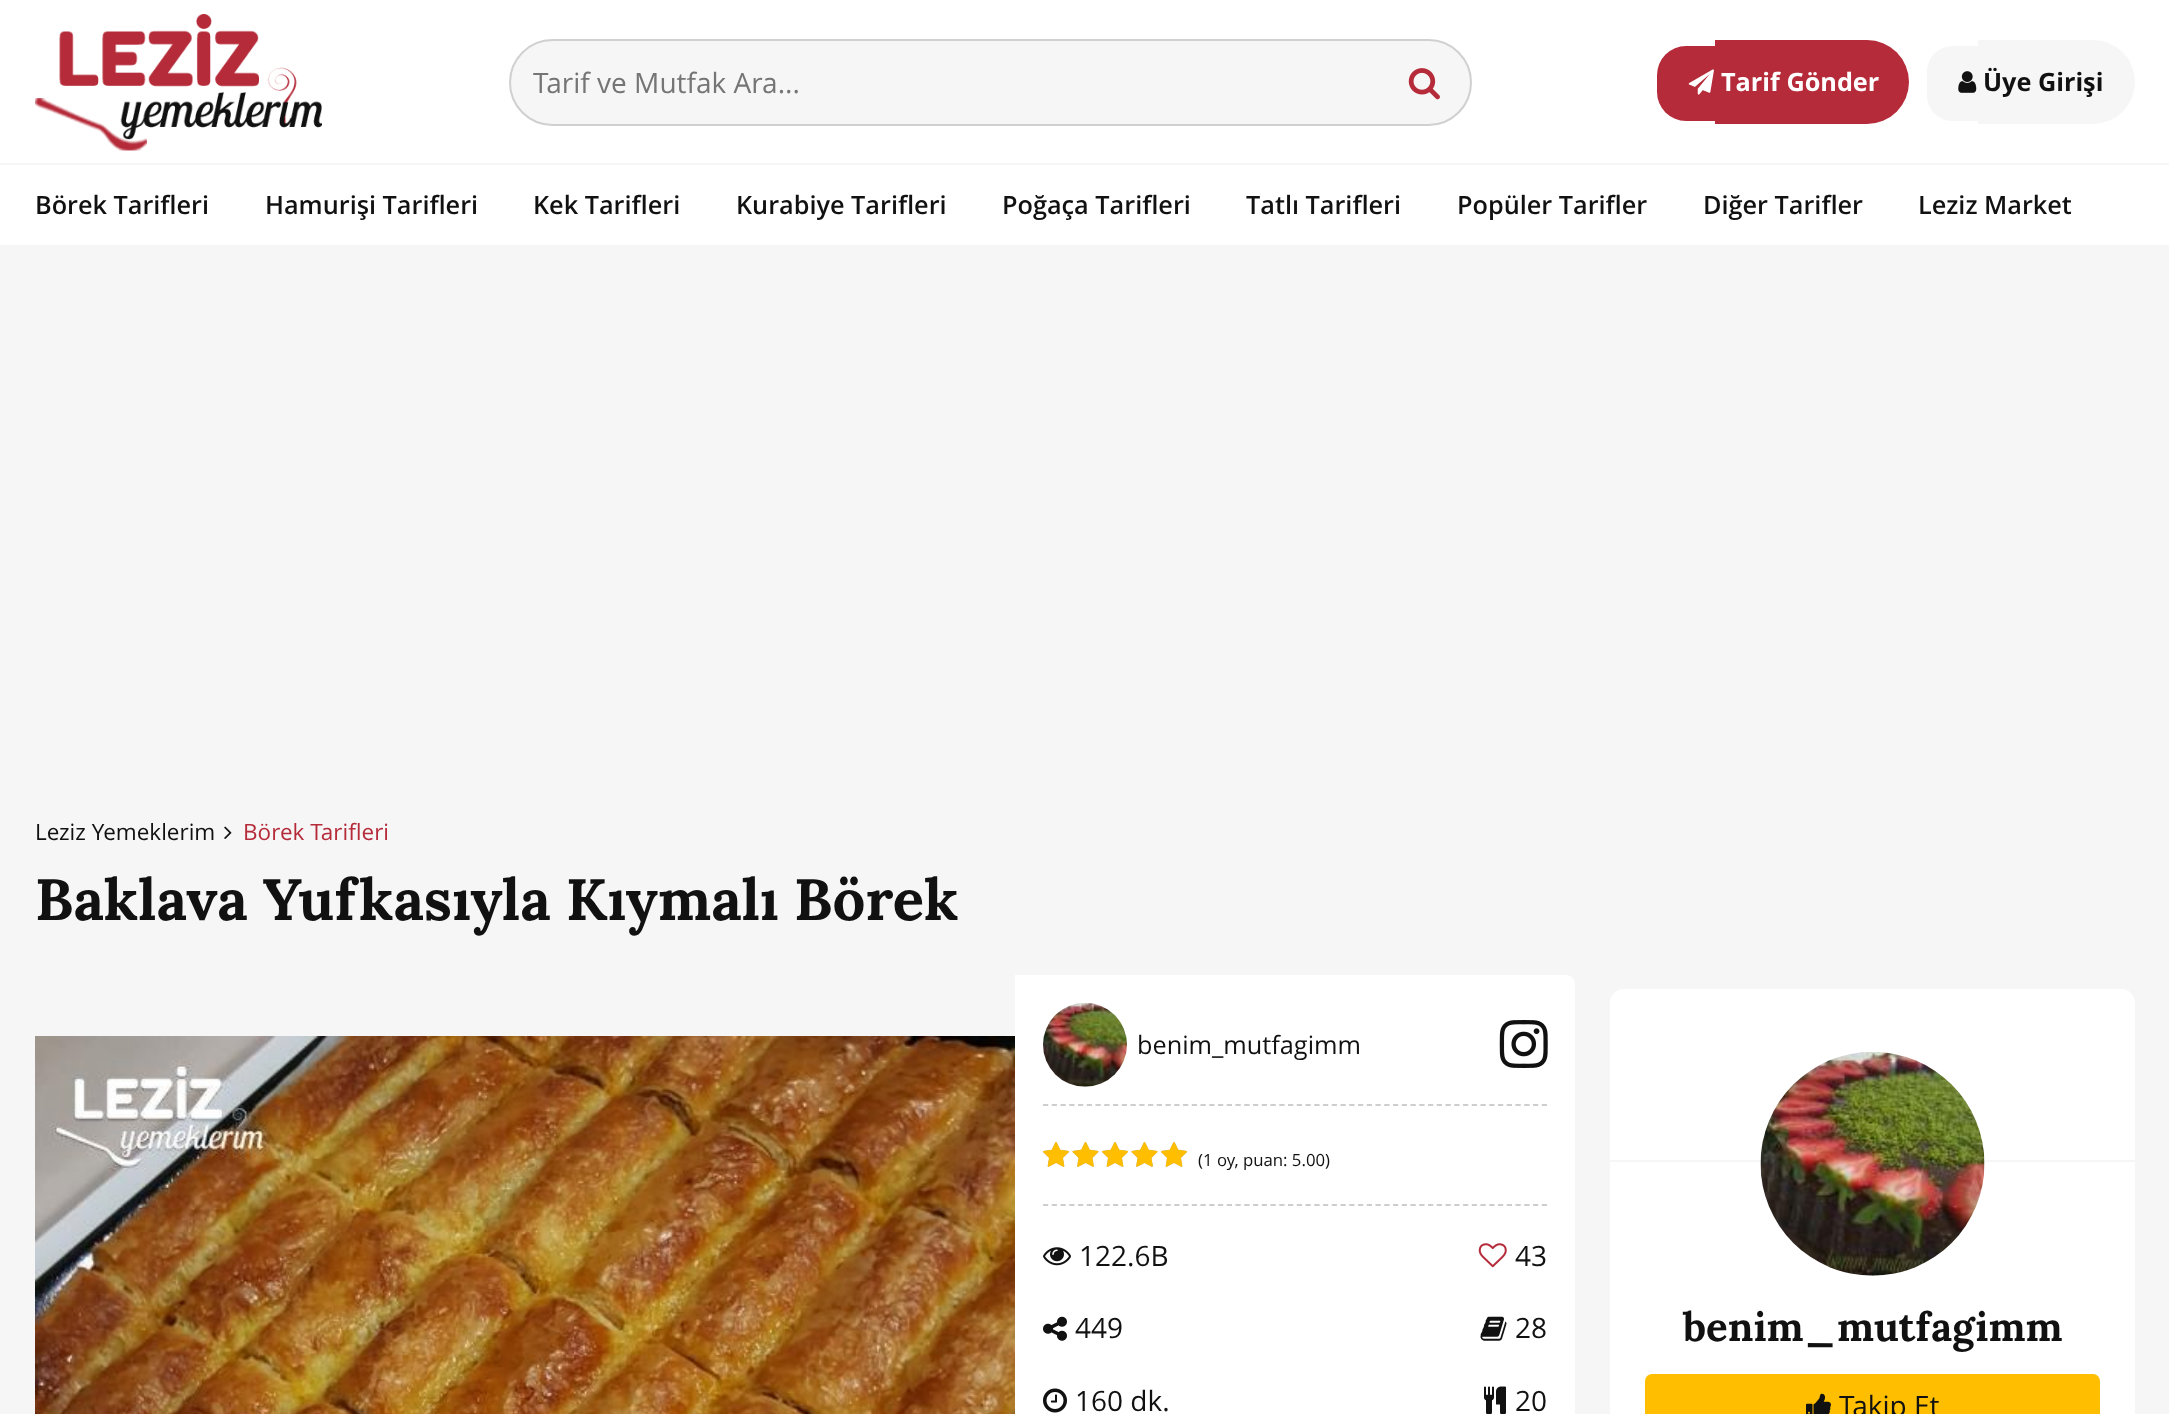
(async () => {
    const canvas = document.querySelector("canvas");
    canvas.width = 2169;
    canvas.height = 1414;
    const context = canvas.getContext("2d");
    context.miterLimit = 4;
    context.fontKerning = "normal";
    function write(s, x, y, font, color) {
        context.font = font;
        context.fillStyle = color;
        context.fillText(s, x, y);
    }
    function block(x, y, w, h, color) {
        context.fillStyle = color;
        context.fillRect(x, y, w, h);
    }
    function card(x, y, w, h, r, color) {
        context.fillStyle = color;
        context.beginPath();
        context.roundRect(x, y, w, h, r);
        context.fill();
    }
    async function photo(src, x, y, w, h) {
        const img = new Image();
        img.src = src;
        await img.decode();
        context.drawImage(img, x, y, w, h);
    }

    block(0, 0, 2169, 1414, "rgb(246, 246, 246)");
    block(0, 0, 2169, 163, "rgb(255, 255, 255)");
    await photo("media/1.png", 35, 14, 287, 137);
    context.fillStyle = "rgb(246, 246, 246)";
    context.beginPath();
    context.roundRect(510, 40, 961, 85, 42.5);
    context.fill();
    context.strokeStyle = "rgb(208, 208, 208)";
    context.lineWidth = 2;
    context.stroke();
    write("Tarif ve Mutfak Ara...", 533, 93, "28px Open Sans", "rgb(117, 117, 117)");
    await photo("media/2.png", 1408, 68, 32, 32);
    context.fillStyle = "rgb(181, 43, 58)";
    context.beginPath();
    context.roundRect(1657, 46, 58, 75, [29, 0, 0, 29]);
    context.fill();
    block(1715, 40, 5, 84, "rgb(181, 43, 58)");
    context.beginPath();
    context.roundRect(1720, 40, 189, 84, [0, 42, 42, 0]);
    context.fill();
    await photo("media/3.png", 1688, 69, 26, 26);
    write("Tarif Gönder", 1721, 91, "bold 25.25px Open Sans", "rgb(255, 255, 255)");
    context.fillStyle = "rgb(246, 246, 246)";
    context.beginPath();
    context.roundRect(1927, 46, 51, 75, [25.5, 0, 0, 25.5]);
    context.fill();
    block(1978, 40, 5, 84, "rgb(246, 246, 246)");
    context.beginPath();
    context.roundRect(1983, 40, 152, 84, [0, 42, 42, 0]);
    context.fill();
    await photo("media/4.png", 1958, 71, 19, 22);
    write("Üye Girişi", 1983, 91, "bold 25.25px Open Sans", "rgb(17, 17, 17)");
    block(0, 165, 2169, 80, "rgb(255, 255, 255)");
    write("Börek Tarifleri", 35, 214, "600 25.25px Open Sans", "rgb(17, 17, 17)");
    write("Hamurişi Tarifleri", 265, 214, "600 25.25px Open Sans", "rgb(17, 17, 17)");
    write("Kek Tarifleri", 533, 214, "600 25.25px Open Sans", "rgb(17, 17, 17)");
    write("Kurabiye Tarifleri", 736, 214, "600 25.25px Open Sans", "rgb(17, 17, 17)");
    write("Poğaça Tarifleri", 1002, 214, "600 25.25px Open Sans", "rgb(17, 17, 17)");
    write("Tatlı Tarifleri", 1246, 214, "600 25.25px Open Sans", "rgb(17, 17, 17)");
    write("Popüler Tarifler", 1457, 214, "600 25.25px Open Sans", "rgb(17, 17, 17)");
    write("Diğer Tarifler", 1703, 214, "600 25.25px Open Sans", "rgb(17, 17, 17)");
    write("Leziz Market", 1918, 214, "600 25.25px Open Sans", "rgb(17, 17, 17)");
    write("Leziz Yemeklerim", 35, 840, "22.5px Open Sans", "rgb(17, 17, 17)");
    await photo("media/5.png", 224, 826, 8, 13);
    write("Börek Tarifleri", 243, 840, "22.5px Open Sans", "rgb(181, 43, 58)");
    write("Baklava Yufkasıyla Kıymalı Börek", 35, 920, "bold 58.1px Lora", "rgb(17, 17, 17)");
    await photo("media/6.png", 35, 1036, 980, 378);
    context.fillStyle = "rgb(255, 255, 255)";
    context.beginPath();
    context.moveTo(1015, 975);
    context.lineTo(1566, 975);
    context.bezierCurveTo(1571, 975, 1575, 979, 1575, 984);
    context.lineTo(1575, 1414);
    context.bezierCurveTo(1575, 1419, 1571, 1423, 1566, 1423);
    context.lineTo(1015, 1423);
    context.closePath();
    context.fill();
    context.beginPath();
    context.moveTo(1043, 1105);
    context.lineTo(1547, 1105);
    context.strokeStyle = "rgb(206, 206, 206)";
    context.lineWidth = 1.8;
    context.setLineDash([5.25, 3.5]);
    context.stroke();
    await photo("media/7.png", 1043, 1003, 84, 84);
    write("benim_mutfagimm", 1137, 1054, "25.25px Open Sans", "rgb(17, 17, 17)");
    await photo("media/8.png", 1499, 1020, 49, 48);
    context.beginPath();
    context.moveTo(1043, 1205);
    context.lineTo(1547, 1205);
    context.stroke();
    await photo("media/9.png", 1043, 1142, 144, 25);
    await photo("media/10.png", 1043, 1142, 144, 25);
    write("(1 oy, puan: 5.00)", 1198, 1166, "16.75px Open Sans", "rgb(17, 17, 17)");
    await photo("media/11.png", 1043, 1247, 28, 19);
    write("122.6B", 1079, 1266, "28px Open Sans", "rgb(17, 17, 17)");
    await photo("media/12.png", 1478, 1243, 29, 25);
    write("43", 1515, 1266, "28px Open Sans", "rgb(17, 17, 17)");
    await photo("media/13.png", 1043, 1316, 24, 25);
    write("449", 1075, 1338, "28px Open Sans", "rgb(17, 17, 17)");
    await photo("media/14.png", 1480, 1316, 27, 25);
    write("28", 1515, 1338, "28px Open Sans", "rgb(17, 17, 17)");
    await photo("media/15.png", 1043, 1388, 24, 25);
    write("160 dk.", 1075, 1411, "28px Open Sans", "rgb(17, 17, 17)");
    await photo("media/16.png", 1484, 1386, 22, 28);
    write("20", 1515, 1411, "28px Open Sans", "rgb(17, 17, 17)");
    card(1610, 989, 525, 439, 14, "rgb(255, 255, 255)");
    block(1610, 1160, 525, 2, "rgb(246, 246, 246)");
    await photo("media/17.png", 1760, 1052, 225, 224);
    write("benim_mutfagimm", 1683, 1341, "bold 40.25px Lora", "rgb(17, 17, 17)");
    card(1645, 1374, 455, 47, 7, "rgb(255, 191, 0)");
    await photo("media/18.png", 1806, 1393, 25, 21);
    write("Takip Et", 1839, 1416, "28px Open Sans", "rgb(17, 17, 17)");
})();
